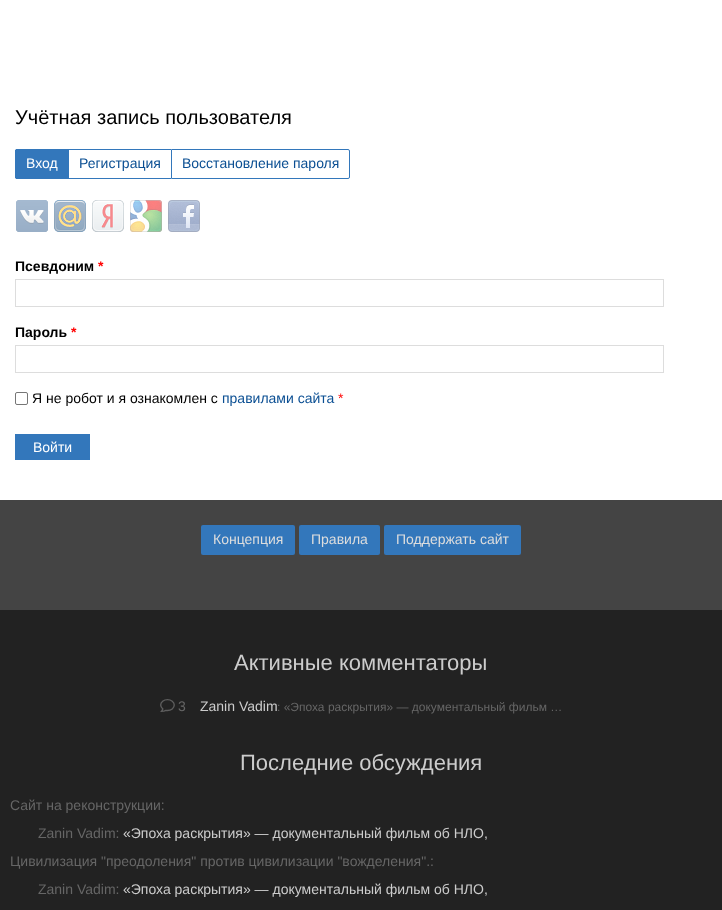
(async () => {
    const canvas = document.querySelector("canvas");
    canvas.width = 722;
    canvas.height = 910;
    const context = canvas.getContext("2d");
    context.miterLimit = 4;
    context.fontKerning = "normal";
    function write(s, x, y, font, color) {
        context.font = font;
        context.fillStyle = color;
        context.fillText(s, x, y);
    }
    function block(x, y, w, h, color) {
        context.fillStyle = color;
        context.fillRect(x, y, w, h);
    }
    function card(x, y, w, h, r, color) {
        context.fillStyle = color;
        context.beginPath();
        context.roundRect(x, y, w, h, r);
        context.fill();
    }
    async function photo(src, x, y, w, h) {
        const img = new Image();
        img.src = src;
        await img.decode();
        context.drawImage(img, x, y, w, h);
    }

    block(0, 0, 722, 910, "rgb(255, 255, 255)");
    write("Учётная запись пользователя", 15, 124, "20px Liberation Sans", "rgb(0, 0, 0)");
    context.fillStyle = "rgb(51, 119, 187)";
    context.beginPath();
    context.roundRect(15, 149, 53, 30, [2, 0, 0, 2]);
    context.fill();
    block(16, 149, 1, 1, "rgb(51, 119, 187)");
    block(16, 178, 1, 1, "rgb(51, 119, 187)");
    block(15, 150, 1, 28, "rgb(51, 119, 187)");
    write("Вход", 26, 168, "14px Liberation Sans", "rgb(255, 255, 255)");
    block(68, 149, 103, 1, "rgb(51, 119, 187)");
    block(68, 178, 103, 1, "rgb(51, 119, 187)");
    block(68, 149, 1, 30, "rgb(51, 119, 187)");
    write("Регистрация", 79, 168, "14px Liberation Sans", "rgb(11, 79, 147)");
    context.beginPath();
    context.roundRect(171.5, 149.5, 178, 29, [0, 1.5, 1.5, 0]);
    context.strokeStyle = "rgb(51, 119, 187)";
    context.stroke();
    write("Восстановление пароля", 182, 168, "14px Liberation Sans", "rgb(11, 79, 147)");
    await photo("media/1.png", 16, 200, 32, 32);
    await photo("media/2.png", 54, 200, 32, 32);
    await photo("media/3.png", 92, 200, 32, 32);
    await photo("media/4.png", 130, 200, 32, 32);
    await photo("media/5.png", 168, 200, 32, 32);
    write("Псевдоним", 15, 271, "bold 14px Liberation Sans", "rgb(0, 0, 0)");
    write("*", 98, 271, "bold 14px Liberation Sans", "rgb(255, 0, 0)");
    context.strokeStyle = "rgb(221, 221, 221)";
    context.strokeRect(15.5, 279.5, 648, 27);
    write("Пароль", 15, 337, "bold 14px Liberation Sans", "rgb(0, 0, 0)");
    write("*", 71, 337, "bold 14px Liberation Sans", "rgb(255, 0, 0)");
    context.strokeRect(15.5, 345.5, 648, 27);
    context.beginPath();
    context.roundRect(15.5, 392.5, 12, 12, 1.5);
    context.strokeStyle = "rgb(118, 118, 118)";
    context.stroke();
    write("Я не робот и я ознакомлен с", 32, 403, "14px Liberation Sans", "rgb(0, 0, 0)");
    write("правилами сайта", 222, 403, "14px Liberation Sans", "rgb(11, 79, 147)");
    write("*", 338, 403, "14px Liberation Sans", "rgb(255, 0, 0)");
    block(15, 434, 75, 26, "rgb(51, 119, 187)");
    write("Войти", 33, 452, "14px Liberation Sans", "rgb(255, 255, 255)");
    block(0, 500, 722, 110, "rgb(68, 68, 68)");
    card(201, 525, 94, 30, 2, "rgb(51, 119, 187)");
    write("Концепция", 213, 544, "14px Liberation Sans", "rgb(221, 221, 221)");
    card(299, 525, 81, 30, 2, "rgb(51, 119, 187)");
    write("Правила", 311, 544, "14px Liberation Sans", "rgb(221, 221, 221)");
    card(384, 525, 137, 30, 2, "rgb(51, 119, 187)");
    write("Поддержать сайт", 396, 544, "14px Liberation Sans", "rgb(221, 221, 221)");
    block(0, 610, 722, 300, "rgb(34, 34, 34)");
    write("Активные комментаторы", 234, 670, "22px Liberation Sans", "rgb(204, 204, 204)");
    await photo("media/6.png", 160, 699, 15, 13);
    write("3", 178, 711, "14px Liberation Sans", "rgb(102, 102, 102)");
    write("Zanin Vadim", 200, 711, "14px Liberation Sans", "rgb(204, 204, 204)");
    write(": «Эпоха раскрытия» — документальный фильм …", 277, 711, "12px Liberation Sans", "rgb(102, 102, 102)");
    write("Последние обсуждения", 240, 770, "22px Liberation Sans", "rgb(204, 204, 204)");
    write("Сайт на реконструкции:", 10, 810, "14px Liberation Sans", "rgb(102, 102, 102)");
    write("Zanin Vadim:", 38, 838, "14px Liberation Sans", "rgb(102, 102, 102)");
    write("«Эпоха раскрытия» — документальный фильм об НЛО,", 123, 838, "14px Liberation Sans", "rgb(204, 204, 204)");
    write("Цивилизация \"преодоления\" против цивилизации \"вожделения\".:", 10, 866, "14px Liberation Sans", "rgb(102, 102, 102)");
    write("Zanin Vadim:", 38, 894, "14px Liberation Sans", "rgb(102, 102, 102)");
    write("«Эпоха раскрытия» — документальный фильм об НЛО,", 123, 894, "14px Liberation Sans", "rgb(204, 204, 204)");
})();
